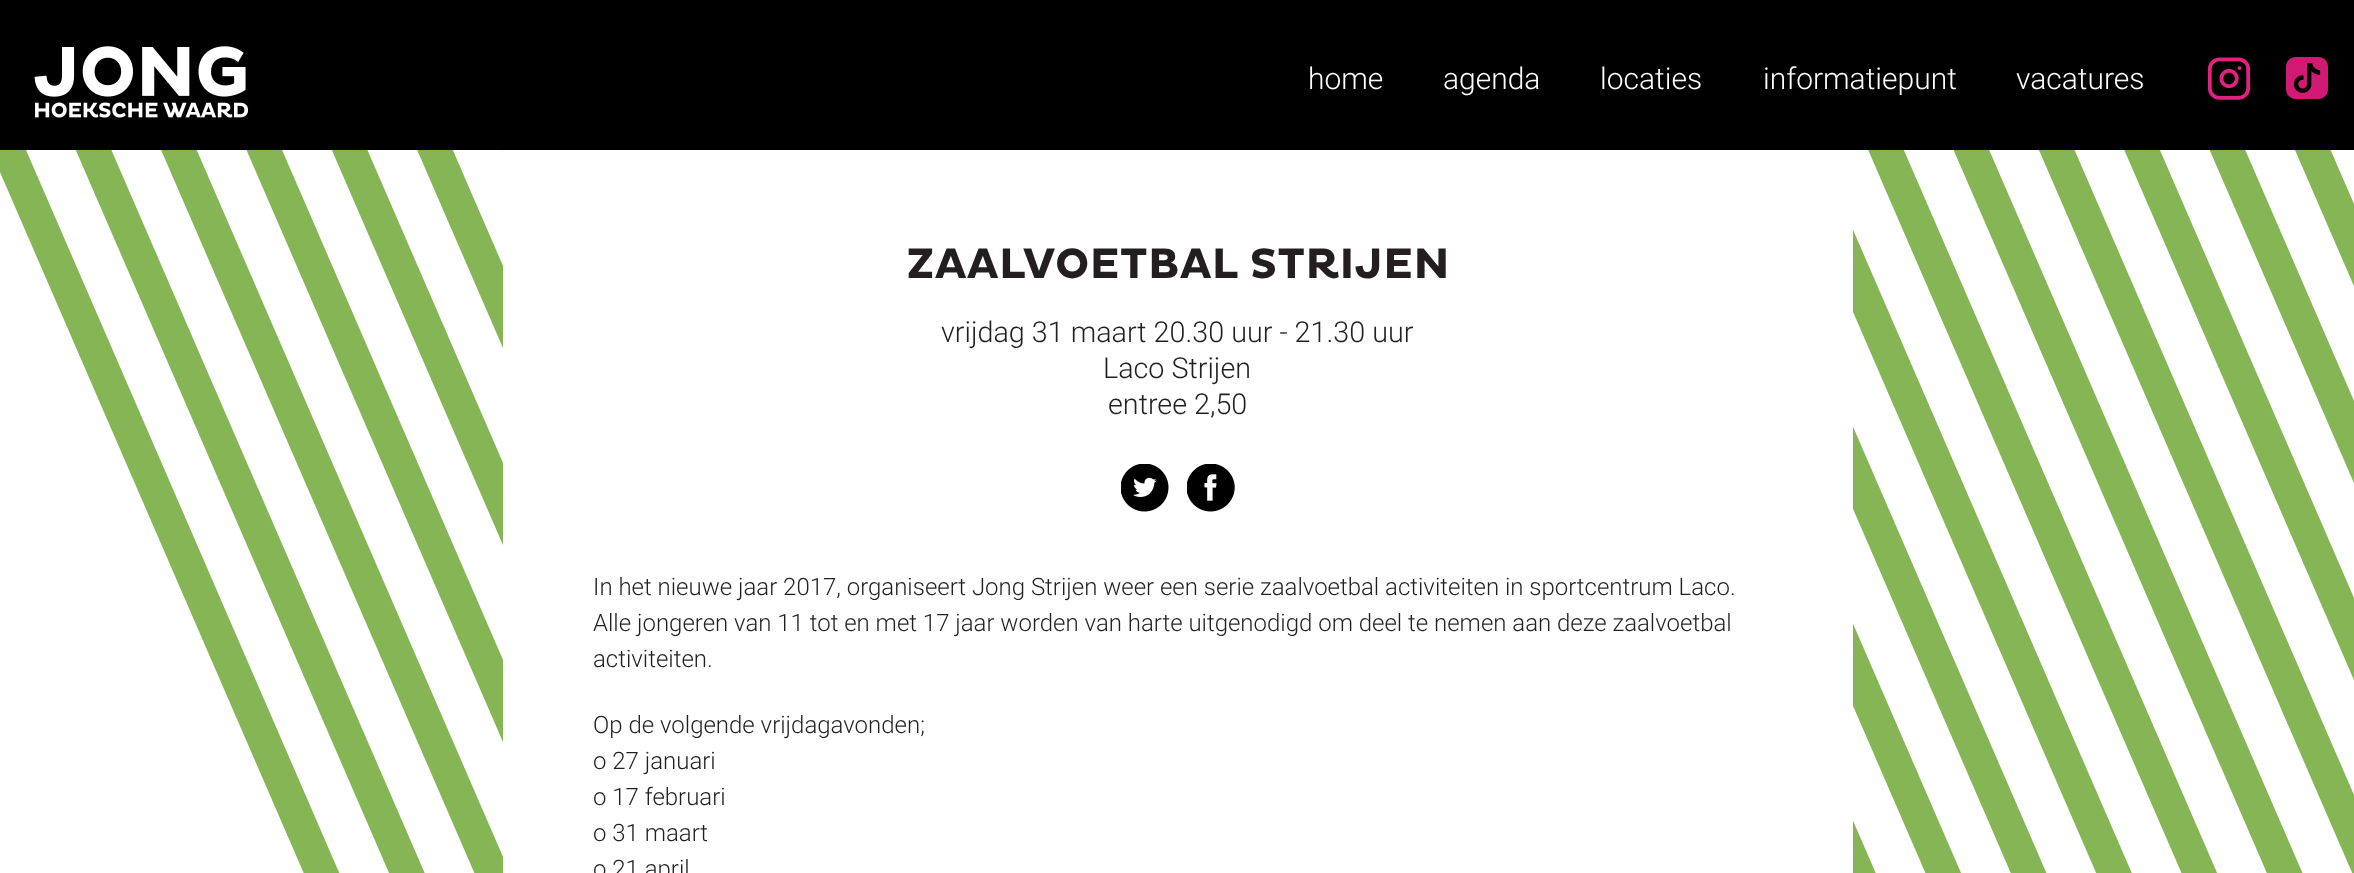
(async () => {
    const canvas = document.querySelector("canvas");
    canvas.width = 2354;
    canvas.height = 873;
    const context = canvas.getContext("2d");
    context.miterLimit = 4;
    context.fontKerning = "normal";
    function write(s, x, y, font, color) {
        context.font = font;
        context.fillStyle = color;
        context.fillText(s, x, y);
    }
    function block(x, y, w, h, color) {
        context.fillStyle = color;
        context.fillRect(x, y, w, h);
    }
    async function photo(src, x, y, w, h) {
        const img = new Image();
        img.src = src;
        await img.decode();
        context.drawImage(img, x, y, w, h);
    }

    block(0, 0, 2354, 873, "rgb(255, 255, 255)");
    block(0, 0, 2354, 150, "rgb(0, 0, 0)");
    await photo("media/1.png", 34, 46, 215, 72);
    write("home", 1308, 89, "300 30px Roboto", "rgb(255, 255, 255)");
    write("agenda", 1443, 89, "300 30px Roboto", "rgb(255, 255, 255)");
    write("locaties", 1600, 89, "300 30px Roboto", "rgb(255, 255, 255)");
    write("informatiepunt", 1763, 89, "300 30px Roboto", "rgb(255, 255, 255)");
    write("vacatures", 2016, 89, "300 30px Roboto", "rgb(255, 255, 255)");
    await photo("media/2.png", 2207, 57, 44, 43);
    await photo("media/3.png", 2286, 57, 42, 42);
    await photo("media/4.png", 0, 150, 2354, 723);
    block(503, 150, 1350, 723, "rgb(255, 255, 255)");
    write("ZAALVOETBAL STRIJEN", 906, 278, "bold 43.25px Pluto", "rgb(35, 31, 32)");
    write("vrijdag 31 maart 20.30 uur - 21.30 uur", 941, 342, "300 28.75px Roboto", "rgb(35, 31, 32)");
    write("Laco Strijen", 1103, 378, "300 28.75px Roboto", "rgb(35, 31, 32)");
    write("entree 2,50", 1108, 414, "300 28.75px Roboto", "rgb(35, 31, 32)");
    await photo("media/5.png", 1121, 464, 48, 48);
    await photo("media/6.png", 1187, 464, 48, 48);
    write("In het nieuwe jaar 2017, organiseert Jong Strijen weer een serie zaalvoetbal activiteiten in sportcentrum Laco.", 593, 595, "300 24px Roboto", "rgb(35, 31, 32)");
    write("Alle jongeren van 11 tot en met 17 jaar worden van harte uitgenodigd om deel te nemen aan deze zaalvoetbal", 593, 631, "300 24px Roboto", "rgb(35, 31, 32)");
    write("activiteiten.", 593, 667, "300 24px Roboto", "rgb(35, 31, 32)");
    write("Op de volgende vrijdagavonden;", 593, 733, "300 24px Roboto", "rgb(35, 31, 32)");
    write("o 27 januari", 593, 769, "300 24px Roboto", "rgb(35, 31, 32)");
    write("o 17 februari", 593, 805, "300 24px Roboto", "rgb(35, 31, 32)");
    write("o 31 maart", 593, 841, "300 24px Roboto", "rgb(35, 31, 32)");
    write("o 21 april", 593, 877, "300 24px Roboto", "rgb(35, 31, 32)");
})();
